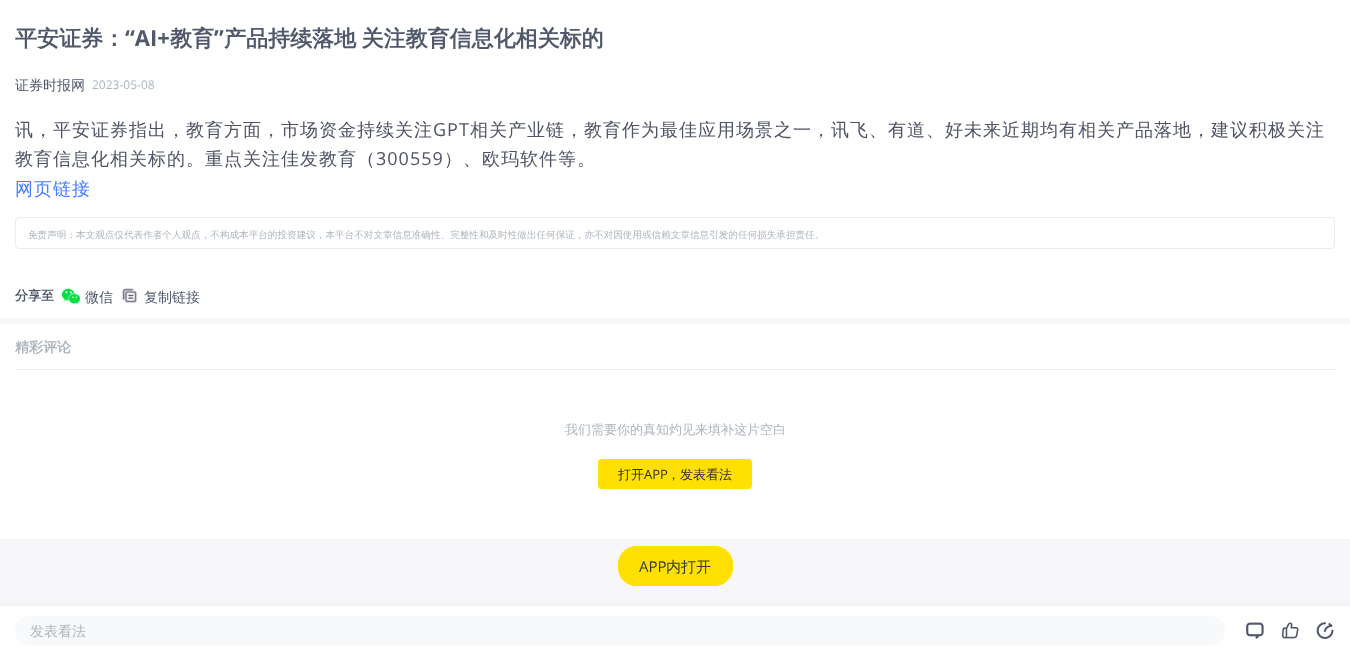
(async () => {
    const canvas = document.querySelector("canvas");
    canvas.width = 1350;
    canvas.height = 656;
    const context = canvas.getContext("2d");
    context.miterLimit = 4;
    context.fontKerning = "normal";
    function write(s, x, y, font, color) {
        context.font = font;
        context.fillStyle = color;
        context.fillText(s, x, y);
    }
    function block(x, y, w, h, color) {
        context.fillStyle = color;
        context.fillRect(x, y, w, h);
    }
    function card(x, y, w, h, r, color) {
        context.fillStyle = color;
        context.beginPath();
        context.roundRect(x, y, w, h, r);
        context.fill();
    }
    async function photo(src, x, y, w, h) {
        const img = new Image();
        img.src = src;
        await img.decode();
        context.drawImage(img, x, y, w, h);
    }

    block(0, 0, 1350, 656, "rgb(247, 247, 250)");
    block(0, 0, 1350, 318, "rgb(255, 255, 255)");
    write("平安证券：", 15, 46, "bold 22px WenQuanYi Zen Hei", "rgb(80, 88, 107)");
    write("“AI+", 125, 46, "bold 22px Open Sans", "rgb(80, 88, 107)");
    write("教育", 170, 46, "bold 22px WenQuanYi Zen Hei", "rgb(80, 88, 107)");
    write("”", 214, 46, "bold 22px Open Sans", "rgb(80, 88, 107)");
    context.wordSpacing = "-1px";
    write("产品持续落地 关注教育信息化相关标的", 224, 46, "bold 22px WenQuanYi Zen Hei", "rgb(80, 88, 107)");
    context.wordSpacing = "0px";
    write("证券时报网", 15, 90, "500 14px WenQuanYi Zen Hei", "rgb(80, 88, 107)");
    write("2023-05-08", 92, 89, "12px Open Sans", "rgb(173, 181, 189)");
    context.letterSpacing = "1px";
    write("讯，平安证券指出，教育方面，市场资金持续关注", 15, 136, "500 18px WenQuanYi Zen Hei", "rgb(79, 83, 100)");
    write("GPT", 433, 136, "18px Open Sans", "rgb(79, 83, 100)");
    write("相关产业链，教育作为最佳应用场景之一，讯飞、有道、好未来近期均有相关产品落地，建议积极关注", 470, 136, "500 18px WenQuanYi Zen Hei", "rgb(79, 83, 100)");
    write("教育信息化相关标的。重点关注佳发教育（", 15, 165, "500 18px WenQuanYi Zen Hei", "rgb(79, 83, 100)");
    write("300559", 376, 165, "18px Open Sans", "rgb(79, 83, 100)");
    write("）、欧玛软件等。", 444, 165, "500 18px WenQuanYi Zen Hei", "rgb(79, 83, 100)");
    write("网页链接", 15, 195, "500 18px WenQuanYi Zen Hei", "rgb(68, 126, 255)");
    context.beginPath();
    context.roundRect(15.5, 217.5, 1319, 31, 3.5);
    context.strokeStyle = "rgb(233, 236, 239)";
    context.stroke();
    context.letterSpacing = "0px";
    write("免责声明：本文观点仅代表作者个人观点，不构成本平台的投资建议，本平台不对文章信息准确性、完整性和及时性做出任何保证，亦不对因使用或信赖文章信息引发的任何损失承担责任。", 28, 238, "500 9.6px WenQuanYi Zen Hei", "rgb(173, 181, 189)");
    write("分享至", 15, 300, "bold 13px WenQuanYi Zen Hei", "rgb(80, 88, 107)");
    await photo("media/1.png", 62, 288, 19, 17);
    write("微信", 85, 302, "500 14px WenQuanYi Zen Hei", "rgb(80, 88, 107)");
    await photo("media/2.png", 122, 288, 15, 15);
    write("复制链接", 144, 302, "500 14px WenQuanYi Zen Hei", "rgb(80, 88, 107)");
    block(0, 324, 1350, 215, "rgb(255, 255, 255)");
    block(15, 369, 1320, 1, "rgb(233, 236, 239)");
    write("精彩评论", 15, 352, "bold 14px WenQuanYi Zen Hei", "rgb(173, 181, 189)");
    write("我们需要你的真知灼见来填补这片空白", 565, 434, "500 13px WenQuanYi Zen Hei", "rgb(173, 181, 189)");
    card(598, 459, 154, 30, 4, "rgb(255, 224, 0)");
    write("打开", 618, 479, "500 13px WenQuanYi Zen Hei", "rgb(44, 46, 59)");
    write("APP", 644, 479, "13px Open Sans", "rgb(44, 46, 59)");
    write("，发表看法", 667, 479, "500 13px WenQuanYi Zen Hei", "rgb(44, 46, 59)");
    context.fillStyle = "rgb(255, 224, 0)";
    context.beginPath();
    context.roundRect(618.5, 546.5, 114, 39, 17.5);
    context.fill();
    context.strokeStyle = "rgb(255, 224, 0)";
    context.stroke();
    write("APP", 639, 572, "15px Open Sans", "rgb(52, 58, 64)");
    write("内打开", 666, 572, "500 15px WenQuanYi Zen Hei", "rgb(52, 58, 64)");
    context.fillStyle = "rgba(0, 0, 0, 0.04)";
    context.filter = "blur(3px)";
    context.beginPath();
    context.rect(0, 605, 1350, 50);
    context.fill();
    context.filter = "none";
    block(0, 606, 1350, 50, "rgb(255, 255, 255)");
    card(15, 616, 1210, 30, 15, "rgb(248, 249, 250)");
    write("发表看法", 30, 636, "500 14px WenQuanYi Zen Hei", "rgb(173, 181, 189)");
    await photo("media/3.png", 1246, 622, 18, 17);
    await photo("media/4.png", 1281, 622, 18, 17);
    await photo("media/5.png", 1316, 622, 18, 17);
})();
